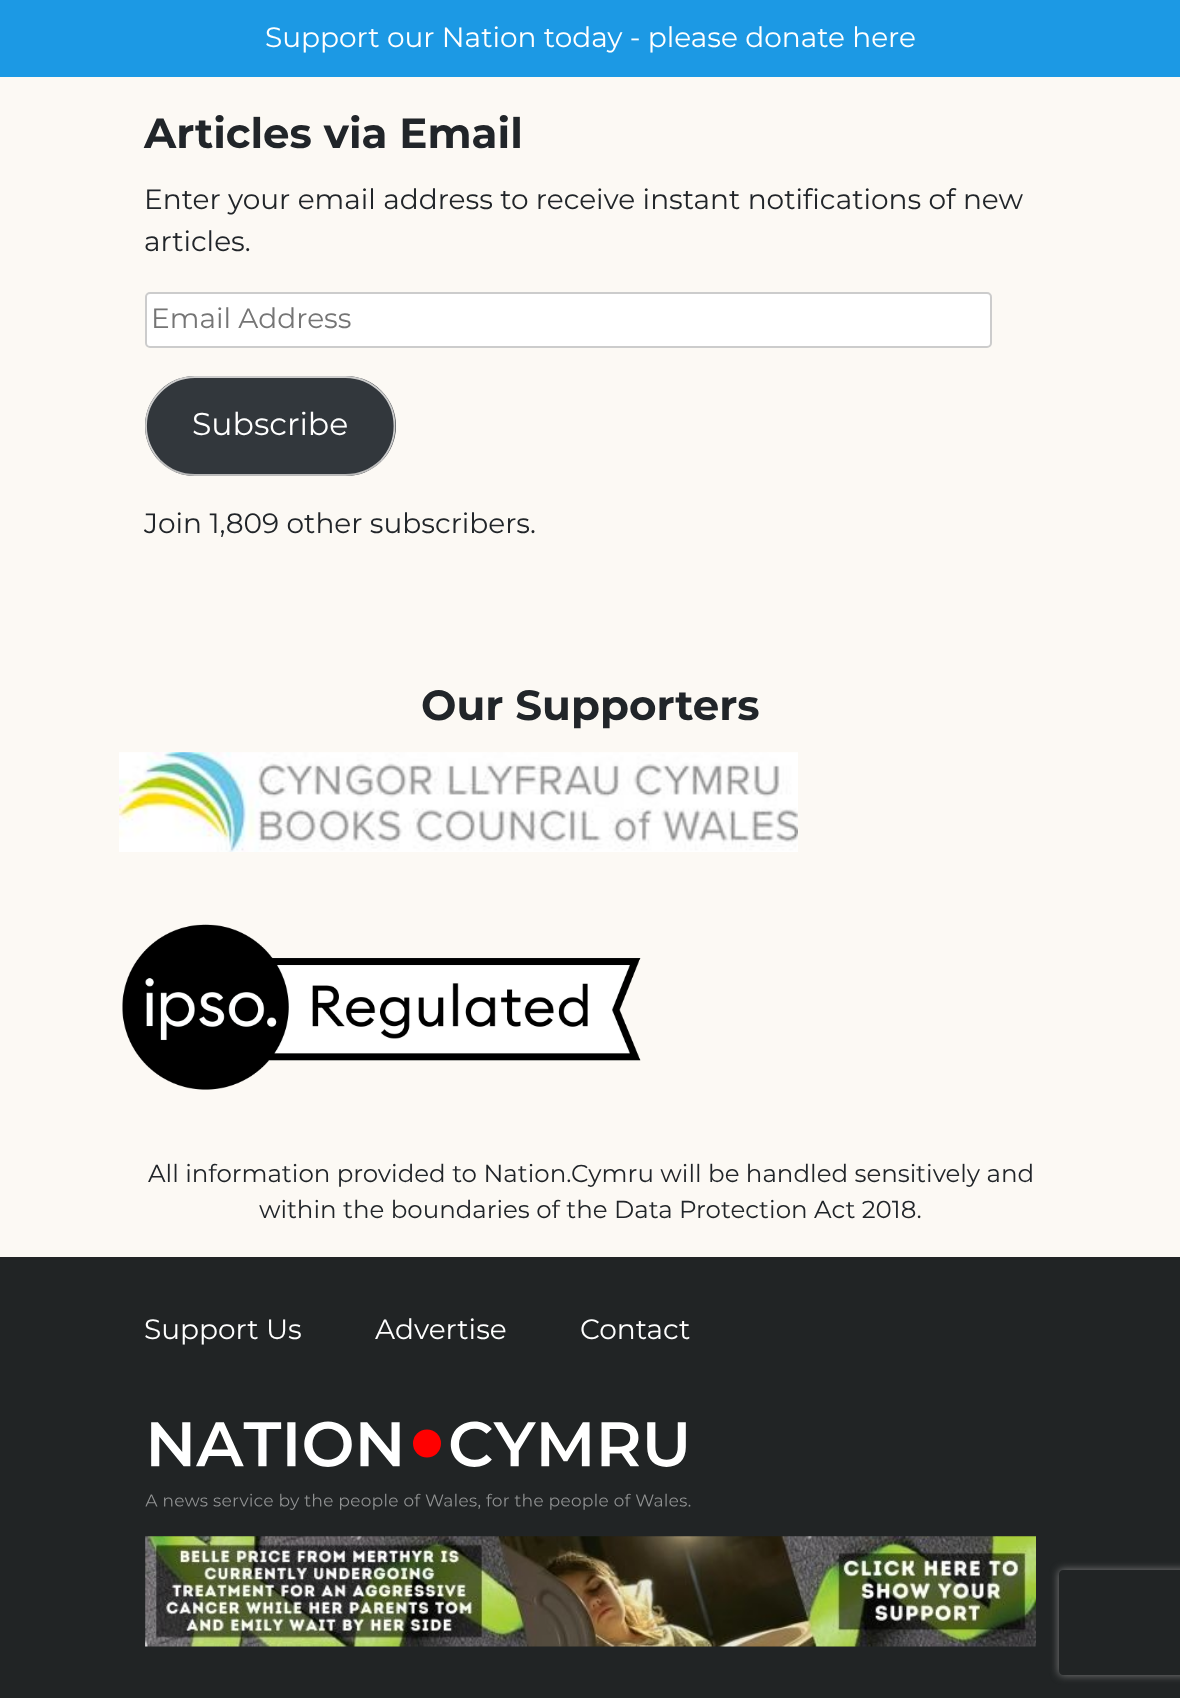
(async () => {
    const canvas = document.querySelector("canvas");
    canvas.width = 1180;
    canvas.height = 1698;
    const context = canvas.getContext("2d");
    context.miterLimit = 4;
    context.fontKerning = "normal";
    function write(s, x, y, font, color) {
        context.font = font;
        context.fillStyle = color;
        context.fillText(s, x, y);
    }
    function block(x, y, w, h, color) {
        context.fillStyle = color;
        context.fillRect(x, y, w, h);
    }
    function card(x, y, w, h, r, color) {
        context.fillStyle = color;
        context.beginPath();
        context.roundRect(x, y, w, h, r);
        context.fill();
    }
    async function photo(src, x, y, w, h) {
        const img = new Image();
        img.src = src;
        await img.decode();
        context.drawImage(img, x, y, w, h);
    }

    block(0, 0, 1180, 1698, "rgb(252, 249, 244)");
    block(0, 0, 1180, 77, "rgb(28, 153, 228)");
    write("Support our Nation today - please donate here", 265, 47, "28px Montserrat", "rgb(255, 255, 255)");
    write("Articles via Email", 144, 148, "bold 42px Montserrat", "rgb(33, 37, 41)");
    write("Enter your email address to receive instant notifications of new", 144, 209, "28px Montserrat", "rgb(33, 37, 41)");
    write("articles.", 144, 251, "28px Montserrat", "rgb(33, 37, 41)");
    context.fillStyle = "rgb(255, 255, 255)";
    context.beginPath();
    context.roundRect(146, 293, 845, 54, 4);
    context.fill();
    context.strokeStyle = "rgb(204, 204, 204)";
    context.lineWidth = 2;
    context.stroke();
    write("Email Address", 151, 328, "28px Montserrat", "rgb(117, 117, 117)");
    card(145, 376, 251, 100, 50, "rgb(50, 55, 60)");
    context.beginPath();
    context.moveTo(380.5, 461);
    context.bezierCurveTo(371, 470, 358.5, 475, 345.5, 475);
    context.lineTo(195, 475);
    context.bezierCurveTo(182, 475, 169.5, 470, 160.5, 461);
    context.strokeStyle = "rgb(187, 187, 187)";
    context.lineWidth = 1.8;
    context.stroke();
    context.beginPath();
    context.moveTo(160.5, 461);
    context.bezierCurveTo(151.5, 451.5, 146, 439, 146, 426);
    context.bezierCurveTo(146, 413, 151.5, 400.5, 160.5, 391.5);
    context.bezierCurveTo(169.5, 382.5, 182, 377, 195, 377);
    context.lineTo(345.5, 377);
    context.bezierCurveTo(358.5, 377, 371, 382.5, 380.5, 391.5);
    context.bezierCurveTo(389.5, 400.5, 394.5, 413, 394.5, 426);
    context.bezierCurveTo(394.5, 439, 389.5, 451.5, 380.5, 461);
    context.strokeStyle = "rgb(204, 204, 204)";
    context.stroke();
    write("Subscribe", 192, 435, "31.5px Montserrat", "rgb(255, 255, 255)");
    write("Join 1,809 other subscribers.", 144, 533, "28px Montserrat", "rgb(33, 37, 41)");
    write("Our Supporters", 421, 720, "bold 42px Montserrat", "rgb(33, 37, 41)");
    await photo("media/1.png", 119, 752, 679, 100);
    await photo("media/2.png", 122, 924, 519, 166);
    write("All information provided to Nation.Cymru will be handled sensitively and", 148, 1182, "24.5px Montserrat", "rgb(33, 37, 41)");
    write("within the boundaries of the Data Protection Act 2018.", 259, 1218, "24.5px Montserrat", "rgb(33, 37, 41)");
    block(0, 1257, 1180, 441, "rgb(33, 36, 37)");
    write("Support Us", 144, 1339, "28px Montserrat", "rgb(255, 255, 255)");
    write("Advertise", 375, 1339, "28px Montserrat", "rgb(255, 255, 255)");
    write("Contact", 580, 1339, "28px Montserrat", "rgb(255, 255, 255)");
    await photo("media/3.png", 145, 1421, 546, 89);
    await photo("media/4.png", 145, 1536, 891, 111);
    context.save();
    context.beginPath();
    context.moveTo(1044, 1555);
    context.lineTo(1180, 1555);
    context.lineTo(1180, 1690);
    context.lineTo(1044, 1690);
    context.closePath();
    context.moveTo(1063, 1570);
    context.lineTo(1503, 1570);
    context.bezierCurveTo(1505, 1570, 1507, 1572, 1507, 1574);
    context.lineTo(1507, 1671);
    context.bezierCurveTo(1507, 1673, 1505, 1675, 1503, 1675);
    context.lineTo(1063, 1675);
    context.bezierCurveTo(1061, 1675, 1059, 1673, 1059, 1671);
    context.lineTo(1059, 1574);
    context.bezierCurveTo(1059, 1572, 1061, 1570, 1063, 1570);
    context.closePath();
    context.clip("evenodd");
    context.fillStyle = "rgb(128, 128, 128)";
    context.filter = "blur(4.5px)";
    context.beginPath();
    context.roundRect(1059, 1570, 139, 105, 4);
    context.fill();
    context.filter = "none";
    context.restore();
})();
